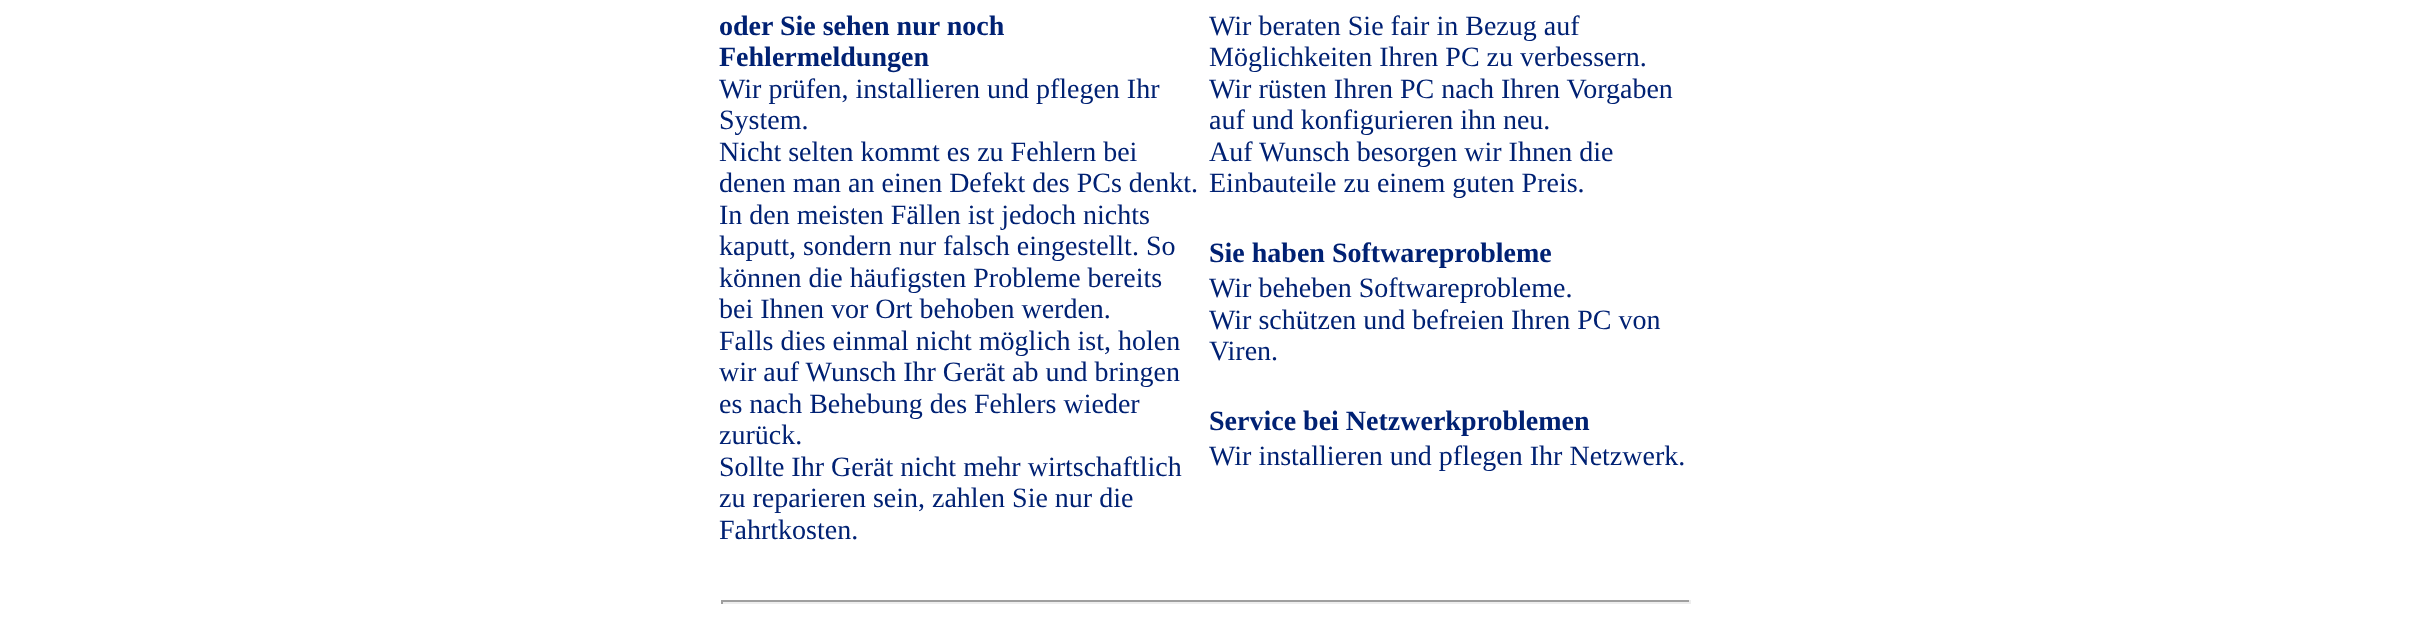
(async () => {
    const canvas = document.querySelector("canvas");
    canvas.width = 2411;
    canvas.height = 624;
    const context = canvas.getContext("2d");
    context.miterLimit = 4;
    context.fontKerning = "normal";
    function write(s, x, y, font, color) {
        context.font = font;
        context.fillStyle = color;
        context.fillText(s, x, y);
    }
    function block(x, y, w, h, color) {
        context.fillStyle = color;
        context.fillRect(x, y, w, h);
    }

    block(0, 0, 2411, 624, "rgb(255, 255, 255)");
    write("oder Sie sehen nur noch", 719, 35, "bold 28px Liberation Serif", "rgb(0, 33, 115)");
    write("Fehlermeldungen", 719, 66, "bold 28px Liberation Serif", "rgb(0, 33, 115)");
    write("Wir prüfen, installieren und pflegen Ihr", 719, 98, "28px Liberation Serif", "rgb(0, 33, 115)");
    write("System.", 719, 129, "28px Liberation Serif", "rgb(0, 33, 115)");
    write("Nicht selten kommt es zu Fehlern bei", 719, 161, "28px Liberation Serif", "rgb(0, 33, 115)");
    write("denen man an einen Defekt des PCs denkt.", 719, 192, "28px Liberation Serif", "rgb(0, 33, 115)");
    write("In den meisten Fällen ist jedoch nichts", 719, 224, "28px Liberation Serif", "rgb(0, 33, 115)");
    write("kaputt, sondern nur falsch eingestellt. So", 719, 255, "28px Liberation Serif", "rgb(0, 33, 115)");
    write("können die häufigsten Probleme bereits", 719, 287, "28px Liberation Serif", "rgb(0, 33, 115)");
    write("bei Ihnen vor Ort behoben werden.", 719, 318, "28px Liberation Serif", "rgb(0, 33, 115)");
    write("Falls dies einmal nicht möglich ist, holen", 719, 350, "28px Liberation Serif", "rgb(0, 33, 115)");
    write("wir auf Wunsch Ihr Gerät ab und bringen", 719, 381, "28px Liberation Serif", "rgb(0, 33, 115)");
    write("es nach Behebung des Fehlers wieder", 719, 413, "28px Liberation Serif", "rgb(0, 33, 115)");
    write("zurück.", 719, 444, "28px Liberation Serif", "rgb(0, 33, 115)");
    write("Sollte Ihr Gerät nicht mehr wirtschaftlich", 719, 476, "28px Liberation Serif", "rgb(0, 33, 115)");
    write("zu reparieren sein, zahlen Sie nur die", 719, 507, "28px Liberation Serif", "rgb(0, 33, 115)");
    write("Fahrtkosten.", 719, 539, "28px Liberation Serif", "rgb(0, 33, 115)");
    write("Wir beraten Sie fair in Bezug auf", 1209, 35, "28px Liberation Serif", "rgb(0, 33, 115)");
    write("Möglichkeiten Ihren PC zu verbessern.", 1209, 66, "28px Liberation Serif", "rgb(0, 33, 115)");
    write("Wir rüsten Ihren PC nach Ihren Vorgaben", 1209, 98, "28px Liberation Serif", "rgb(0, 33, 115)");
    write("auf und konfigurieren ihn neu.", 1209, 129, "28px Liberation Serif", "rgb(0, 33, 115)");
    write("Auf Wunsch besorgen wir Ihnen die", 1209, 161, "28px Liberation Serif", "rgb(0, 33, 115)");
    write("Einbauteile zu einem guten Preis.", 1209, 192, "28px Liberation Serif", "rgb(0, 33, 115)");
    write("Sie haben Softwareprobleme", 1209, 262, "bold 28px Liberation Serif", "rgb(0, 33, 115)");
    write("Wir beheben Softwareprobleme.", 1209, 297, "28px Liberation Serif", "rgb(0, 33, 115)");
    write("Wir schützen und befreien Ihren PC von", 1209, 329, "28px Liberation Serif", "rgb(0, 33, 115)");
    write("Viren.", 1209, 360, "28px Liberation Serif", "rgb(0, 33, 115)");
    write("Service bei Netzwerkproblemen", 1209, 430, "bold 28px Liberation Serif", "rgb(0, 33, 115)");
    write("Wir installieren und pflegen Ihr Netzwerk.", 1209, 465, "28px Liberation Serif", "rgb(0, 33, 115)");
    block(721, 600, 970, 2, "rgb(159, 159, 159)");
    block(1689, 600, 2, 4, "rgb(238, 238, 238)");
    block(721, 602, 970, 2, "rgb(238, 238, 238)");
    block(721, 600, 2, 4, "rgb(159, 159, 159)");
})();
